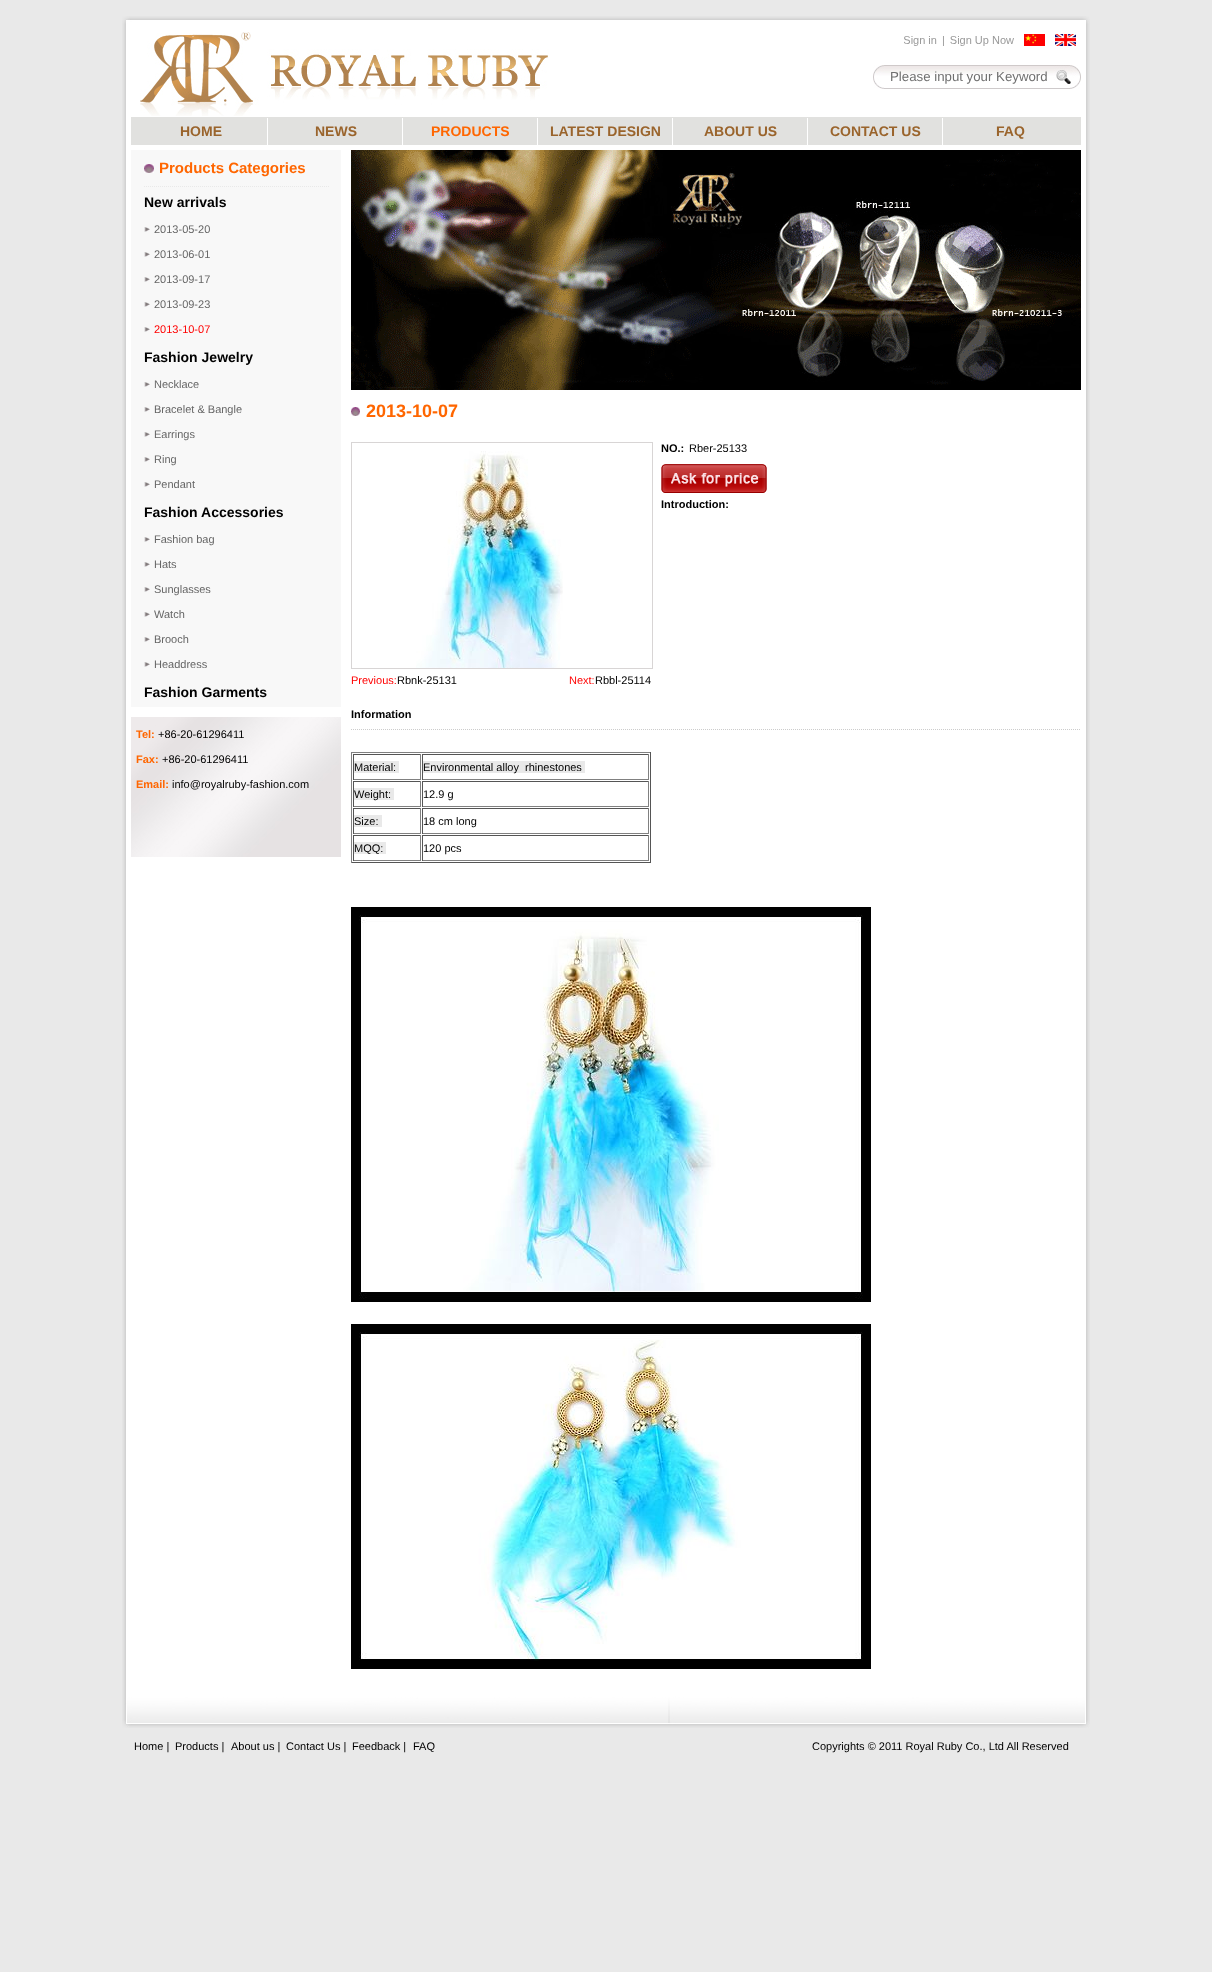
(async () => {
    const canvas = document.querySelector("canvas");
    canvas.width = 1212;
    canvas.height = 1972;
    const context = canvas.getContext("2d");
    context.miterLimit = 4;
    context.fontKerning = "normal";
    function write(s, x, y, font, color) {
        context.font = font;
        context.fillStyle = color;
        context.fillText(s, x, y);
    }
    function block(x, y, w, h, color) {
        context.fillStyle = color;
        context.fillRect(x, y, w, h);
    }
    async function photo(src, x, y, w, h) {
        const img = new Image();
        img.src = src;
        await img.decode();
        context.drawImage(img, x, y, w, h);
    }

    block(0, 0, 1212, 1972, "rgb(233, 233, 233)");
    await photo("media/1.png", 122, 16, 968, 9);
    await photo("media/2.png", 122, 25, 968, 1671);
    await photo("media/3.png", 140, 32, 409, 84);
    await photo("media/4.png", 904, 34, 172, 12);
    await photo("media/5.png", 873, 65, 12, 24);
    await photo("media/6.png", 885, 65, 168, 24);
    write("Please input your Keyword", 890, 81, "13.25px Liberation Sans", "rgb(111, 111, 111)");
    await photo("media/7.png", 1053, 65, 28, 24);
    block(131, 117, 950, 28, "rgb(225, 225, 223)");
    block(267, 118, 1, 27, "rgb(255, 255, 255)");
    write("HOME", 180, 136, "bold 14px Liberation Sans", "rgb(154, 100, 44)");
    block(402, 118, 1, 27, "rgb(255, 255, 255)");
    write("NEWS", 315, 136, "bold 14px Liberation Sans", "rgb(154, 100, 44)");
    block(537, 118, 1, 27, "rgb(255, 255, 255)");
    write("PRODUCTS", 431, 136, "bold 14px Liberation Sans", "rgb(255, 102, 0)");
    block(672, 118, 1, 27, "rgb(255, 255, 255)");
    write("LATEST DESIGN", 550, 136, "bold 14px Liberation Sans", "rgb(154, 100, 44)");
    block(807, 118, 1, 27, "rgb(255, 255, 255)");
    write("ABOUT US", 704, 136, "bold 14px Liberation Sans", "rgb(154, 100, 44)");
    block(942, 118, 1, 27, "rgb(255, 255, 255)");
    write("CONTACT US", 830, 136, "bold 14px Liberation Sans", "rgb(154, 100, 44)");
    write("FAQ", 996, 136, "bold 14px Liberation Sans", "rgb(154, 100, 44)");
    block(131, 150, 210, 557, "rgb(248, 248, 248)");
    context.beginPath();
    context.moveTo(144, 186.5);
    context.lineTo(329, 186.5);
    context.strokeStyle = "rgb(233, 233, 233)";
    context.setLineDash([1, 1]);
    context.stroke();
    await photo("media/8.png", 144, 164, 10, 9);
    write("Products Categories", 159, 173, "bold 15px Liberation Sans", "rgb(255, 102, 0)");
    write("New arrivals", 144, 207, "bold 14px Liberation Sans", "rgb(0, 0, 0)");
    await photo("media/9.png", 144, 227, 6, 5);
    write("2013-05-20", 154, 233, "11px Liberation Sans", "rgb(102, 102, 102)");
    await photo("media/9.png", 144, 252, 6, 5);
    write("2013-06-01", 154, 258, "11px Liberation Sans", "rgb(102, 102, 102)");
    await photo("media/9.png", 144, 277, 6, 5);
    write("2013-09-17", 154, 283, "11px Liberation Sans", "rgb(102, 102, 102)");
    await photo("media/9.png", 144, 302, 6, 5);
    write("2013-09-23", 154, 308, "11px Liberation Sans", "rgb(102, 102, 102)");
    await photo("media/9.png", 144, 327, 6, 5);
    write("2013-10-07", 154, 333, "11px Liberation Sans", "rgb(255, 0, 0)");
    write("Fashion Jewelry", 144, 362, "bold 14px Liberation Sans", "rgb(0, 0, 0)");
    await photo("media/9.png", 144, 382, 6, 5);
    write("Necklace", 154, 388, "11px Liberation Sans", "rgb(102, 102, 102)");
    await photo("media/9.png", 144, 407, 6, 5);
    write("Bracelet & Bangle", 154, 413, "11px Liberation Sans", "rgb(102, 102, 102)");
    await photo("media/9.png", 144, 432, 6, 5);
    write("Earrings", 154, 438, "11px Liberation Sans", "rgb(102, 102, 102)");
    await photo("media/9.png", 144, 457, 6, 5);
    write("Ring", 154, 463, "11px Liberation Sans", "rgb(102, 102, 102)");
    await photo("media/9.png", 144, 482, 6, 5);
    write("Pendant", 154, 488, "11px Liberation Sans", "rgb(102, 102, 102)");
    write("Fashion Accessories", 144, 517, "bold 14px Liberation Sans", "rgb(0, 0, 0)");
    await photo("media/9.png", 144, 537, 6, 5);
    write("Fashion bag", 154, 543, "11px Liberation Sans", "rgb(102, 102, 102)");
    await photo("media/9.png", 144, 562, 6, 5);
    write("Hats", 154, 568, "11px Liberation Sans", "rgb(102, 102, 102)");
    await photo("media/9.png", 144, 587, 6, 5);
    write("Sunglasses", 154, 593, "11px Liberation Sans", "rgb(102, 102, 102)");
    await photo("media/9.png", 144, 612, 6, 5);
    write("Watch", 154, 618, "11px Liberation Sans", "rgb(102, 102, 102)");
    await photo("media/9.png", 144, 637, 6, 5);
    write("Brooch", 154, 643, "11px Liberation Sans", "rgb(102, 102, 102)");
    await photo("media/9.png", 144, 662, 6, 5);
    write("Headdress", 154, 668, "11px Liberation Sans", "rgb(102, 102, 102)");
    write("Fashion Garments", 144, 697, "bold 14px Liberation Sans", "rgb(0, 0, 0)");
    await photo("media/10.png", 131, 717, 210, 140);
    write("Tel:", 136, 738, "bold 11px Liberation Sans", "rgb(255, 102, 0)");
    write("+86-20-61296411", 158, 738, "11px Liberation Sans", "rgb(0, 0, 0)");
    write("Fax:", 136, 763, "bold 11px Liberation Sans", "rgb(255, 102, 0)");
    write("+86-20-61296411", 162, 763, "11px Liberation Sans", "rgb(0, 0, 0)");
    write("Email:", 136, 788, "bold 11px Liberation Sans", "rgb(255, 102, 0)");
    write("info@royalruby-fashion.com", 172, 788, "11px Liberation Sans", "rgb(0, 0, 0)");
    await photo("media/11.png", 351, 150, 730, 240);
    await photo("media/12.png", 351, 407, 9, 9);
    write("2013-10-07", 366, 417, "bold 18px Liberation Sans", "rgb(255, 102, 0)");
    write("NO.:", 661, 452, "bold 11px Liberation Sans", "rgb(0, 0, 0)");
    write("Rber-25133", 689, 452, "11px Liberation Sans", "rgb(0, 0, 0)");
    await photo("media/13.png", 661, 464, 106, 29);
    write("Introduction:", 661, 508, "bold 11px Liberation Sans", "rgb(0, 0, 0)");
    context.strokeStyle = "rgb(216, 213, 213)";
    context.setLineDash([]);
    context.strokeRect(351.5, 442.5, 301, 226);
    await photo("media/14.png", 416, 451, 147, 217);
    write("Previous:", 351, 684, "11px Liberation Sans", "rgb(255, 0, 0)");
    write("Rbnk-25131", 397, 684, "11px Liberation Sans", "rgb(0, 0, 0)");
    write("Next:", 569, 684, "11px Liberation Sans", "rgb(255, 0, 0)");
    write("Rbbl-25114", 595, 684, "11px Liberation Sans", "rgb(0, 0, 0)");
    context.beginPath();
    context.moveTo(351, 729.5);
    context.lineTo(1081, 729.5);
    context.strokeStyle = "rgb(204, 204, 204)";
    context.setLineDash([1, 1]);
    context.stroke();
    write("Information", 351, 718, "bold 11px Liberation Sans", "rgb(0, 0, 0)");
    block(351, 752, 300, 1, "rgb(128, 128, 128)");
    block(650, 752, 1, 111, "rgb(85, 85, 85)");
    block(351, 862, 300, 1, "rgb(85, 85, 85)");
    block(351, 752, 1, 111, "rgb(128, 128, 128)");
    block(353, 754, 68, 1, "rgb(85, 85, 85)");
    block(420, 754, 1, 26, "rgb(128, 128, 128)");
    block(353, 779, 68, 1, "rgb(128, 128, 128)");
    block(353, 754, 1, 26, "rgb(85, 85, 85)");
    block(354, 761, 45, 12, "rgb(233, 233, 233)");
    write("Material:", 354, 771, "11px Liberation Sans", "rgb(0, 0, 0)");
    block(422, 754, 227, 1, "rgb(85, 85, 85)");
    block(648, 754, 1, 26, "rgb(128, 128, 128)");
    block(422, 779, 227, 1, "rgb(128, 128, 128)");
    block(422, 754, 1, 26, "rgb(85, 85, 85)");
    block(423, 761, 162, 12, "rgb(233, 233, 233)");
    write("Environmental alloy", 423, 771, "11px Liberation Sans", "rgb(0, 0, 0)");
    write("rhinestones", 525, 771, "11px Liberation Sans", "rgb(0, 0, 0)");
    block(353, 781, 68, 1, "rgb(85, 85, 85)");
    block(420, 781, 1, 26, "rgb(128, 128, 128)");
    block(353, 806, 68, 1, "rgb(128, 128, 128)");
    block(353, 781, 1, 26, "rgb(85, 85, 85)");
    block(354, 788, 40, 12, "rgb(233, 233, 233)");
    write("Weight:", 354, 798, "11px Liberation Sans", "rgb(0, 0, 0)");
    block(422, 781, 227, 1, "rgb(85, 85, 85)");
    block(648, 781, 1, 26, "rgb(128, 128, 128)");
    block(422, 806, 227, 1, "rgb(128, 128, 128)");
    block(422, 781, 1, 26, "rgb(85, 85, 85)");
    write("12.9 g", 423, 798, "11px Liberation Sans", "rgb(0, 0, 0)");
    block(353, 808, 68, 1, "rgb(85, 85, 85)");
    block(420, 808, 1, 26, "rgb(128, 128, 128)");
    block(353, 833, 68, 1, "rgb(128, 128, 128)");
    block(353, 808, 1, 26, "rgb(85, 85, 85)");
    block(354, 815, 28, 12, "rgb(233, 233, 233)");
    write("Size:", 354, 825, "11px Liberation Sans", "rgb(0, 0, 0)");
    block(422, 808, 227, 1, "rgb(85, 85, 85)");
    block(648, 808, 1, 26, "rgb(128, 128, 128)");
    block(422, 833, 227, 1, "rgb(128, 128, 128)");
    block(422, 808, 1, 26, "rgb(85, 85, 85)");
    write("18 cm long", 423, 825, "11px Liberation Sans", "rgb(0, 0, 0)");
    block(353, 835, 68, 1, "rgb(85, 85, 85)");
    block(420, 835, 1, 26, "rgb(128, 128, 128)");
    block(353, 860, 68, 1, "rgb(128, 128, 128)");
    block(353, 835, 1, 26, "rgb(85, 85, 85)");
    block(354, 842, 32, 12, "rgb(233, 233, 233)");
    write("MQQ:", 354, 852, "11px Liberation Sans", "rgb(0, 0, 0)");
    block(422, 835, 227, 1, "rgb(85, 85, 85)");
    block(648, 835, 1, 26, "rgb(128, 128, 128)");
    block(422, 860, 227, 1, "rgb(128, 128, 128)");
    block(422, 835, 1, 26, "rgb(85, 85, 85)");
    write("120 pcs", 423, 852, "11px Liberation Sans", "rgb(0, 0, 0)");
    await photo("media/15.png", 351, 907, 520, 395);
    await photo("media/16.png", 351, 1324, 520, 345);
    await photo("media/17.png", 122, 1696, 968, 32);
    write("Home |", 134, 1750, "11px Liberation Sans", "rgb(0, 0, 0)");
    write("Products |", 175, 1750, "11px Liberation Sans", "rgb(0, 0, 0)");
    write("About us |", 231, 1750, "11px Liberation Sans", "rgb(0, 0, 0)");
    write("Contact Us |", 286, 1750, "11px Liberation Sans", "rgb(0, 0, 0)");
    write("Feedback |", 352, 1750, "11px Liberation Sans", "rgb(0, 0, 0)");
    write("FAQ", 413, 1750, "11px Liberation Sans", "rgb(0, 0, 0)");
    write("Copyrights © 2011 Royal Ruby Co., Ltd All Reserved", 812, 1750, "11px Liberation Sans", "rgb(0, 0, 0)");
})();
